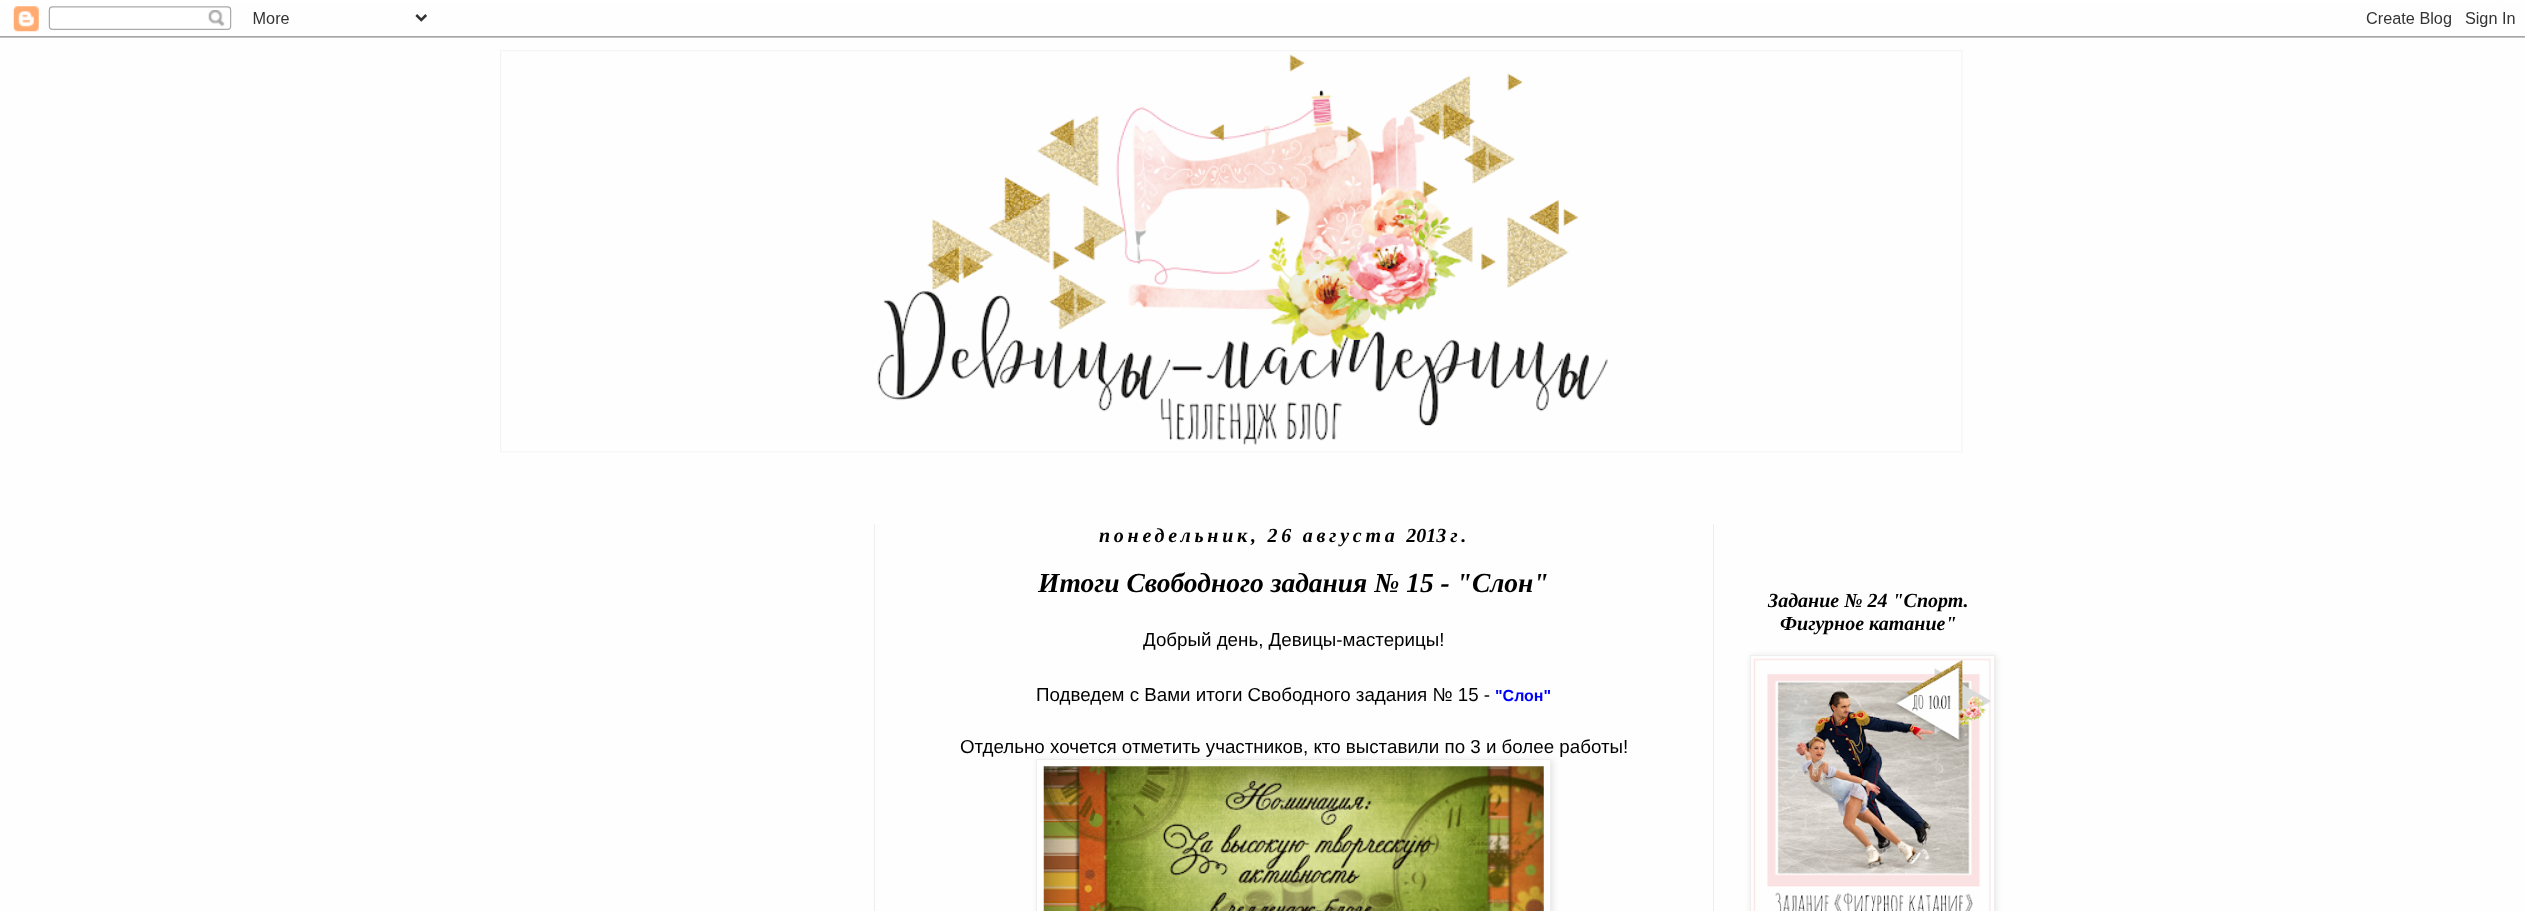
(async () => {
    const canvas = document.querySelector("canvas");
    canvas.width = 2525;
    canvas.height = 911;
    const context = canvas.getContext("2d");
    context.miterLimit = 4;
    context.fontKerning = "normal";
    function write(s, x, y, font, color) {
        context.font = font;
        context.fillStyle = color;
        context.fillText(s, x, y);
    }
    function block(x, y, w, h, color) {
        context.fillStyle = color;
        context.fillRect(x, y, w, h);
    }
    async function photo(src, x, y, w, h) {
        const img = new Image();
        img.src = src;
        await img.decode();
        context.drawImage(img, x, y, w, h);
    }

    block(0, 0, 2525, 911, "rgb(255, 255, 255)");
    await photo("media/1.png", 0, 0, 2525, 911);
    await photo("media/2.png", 0, 0, 2525, 500);
    await photo("media/3.png", 0, 0, 2525, 38);
    await photo("media/4.png", 500, 50, 1463, 403);
    block(874, 524, 1, 387, "rgb(238, 238, 238)");
    block(1713, 524, 1, 387, "rgb(238, 238, 238)");
    context.letterSpacing = "3.75px";
    context.wordSpacing = "-1px";
    write("понедельник, 26 августа 2013 г.", 1099, 542, "italic bold 20px Liberation Serif", "rgb(0, 0, 0)");
    context.letterSpacing = "0px";
    context.wordSpacing = "0px";
    write("Итоги Свободного задания № 15 - \"Слон\"", 1038, 592, "italic bold 27.5px Liberation Serif", "rgb(0, 0, 0)");
    write("Добрый день, Девицы-мастерицы!", 1143, 646, "18.75px Liberation Sans", "rgb(0, 0, 0)");
    write("Подведем с Вами итоги Свободного задания № 15 -", 1036, 701, "18.75px Liberation Sans", "rgb(0, 0, 0)");
    write("\"Слон\"", 1495, 701, "bold 16px Liberation Sans", "rgb(0, 0, 255)");
    write("Отдельно хочется отметить участников, кто выставили по 3 и более работы!", 960, 753, "18.75px Liberation Sans", "rgb(0, 0, 0)");
    context.fillStyle = "rgba(0, 0, 0, 0.1)";
    context.filter = "blur(3px)";
    context.beginPath();
    context.rect(1038, 760, 515, 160);
    context.fill();
    context.filter = "none";
    context.fillStyle = "rgb(255, 255, 255)";
    context.beginPath();
    context.rect(1036.5, 759.5, 514, 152);
    context.fill();
    context.strokeStyle = "rgb(238, 238, 238)";
    context.stroke();
    await photo("media/5.png", 1043, 766, 501, 145);
    write("Задание № 24 \"Спорт.", 1768, 607, "italic bold 20px Liberation Serif", "rgb(0, 0, 0)");
    write("Фигурное катание\"", 1780, 630, "italic bold 20px Liberation Serif", "rgb(0, 0, 0)");
    context.save();
    context.beginPath();
    context.moveTo(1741, 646);
    context.lineTo(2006, 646);
    context.lineTo(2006, 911);
    context.lineTo(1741, 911);
    context.closePath();
    context.moveTo(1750, 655);
    context.lineTo(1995, 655);
    context.lineTo(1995, 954);
    context.lineTo(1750, 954);
    context.closePath();
    context.clip("evenodd");
    context.fillStyle = "rgba(0, 0, 0, 0.1)";
    context.filter = "blur(3px)";
    context.beginPath();
    context.rect(1751, 656, 245, 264);
    context.fill();
    context.filter = "none";
    context.restore();
    context.strokeRect(1750.5, 655.5, 244, 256);
    await photo("media/6.png", 1753, 658, 238, 253);
})();
